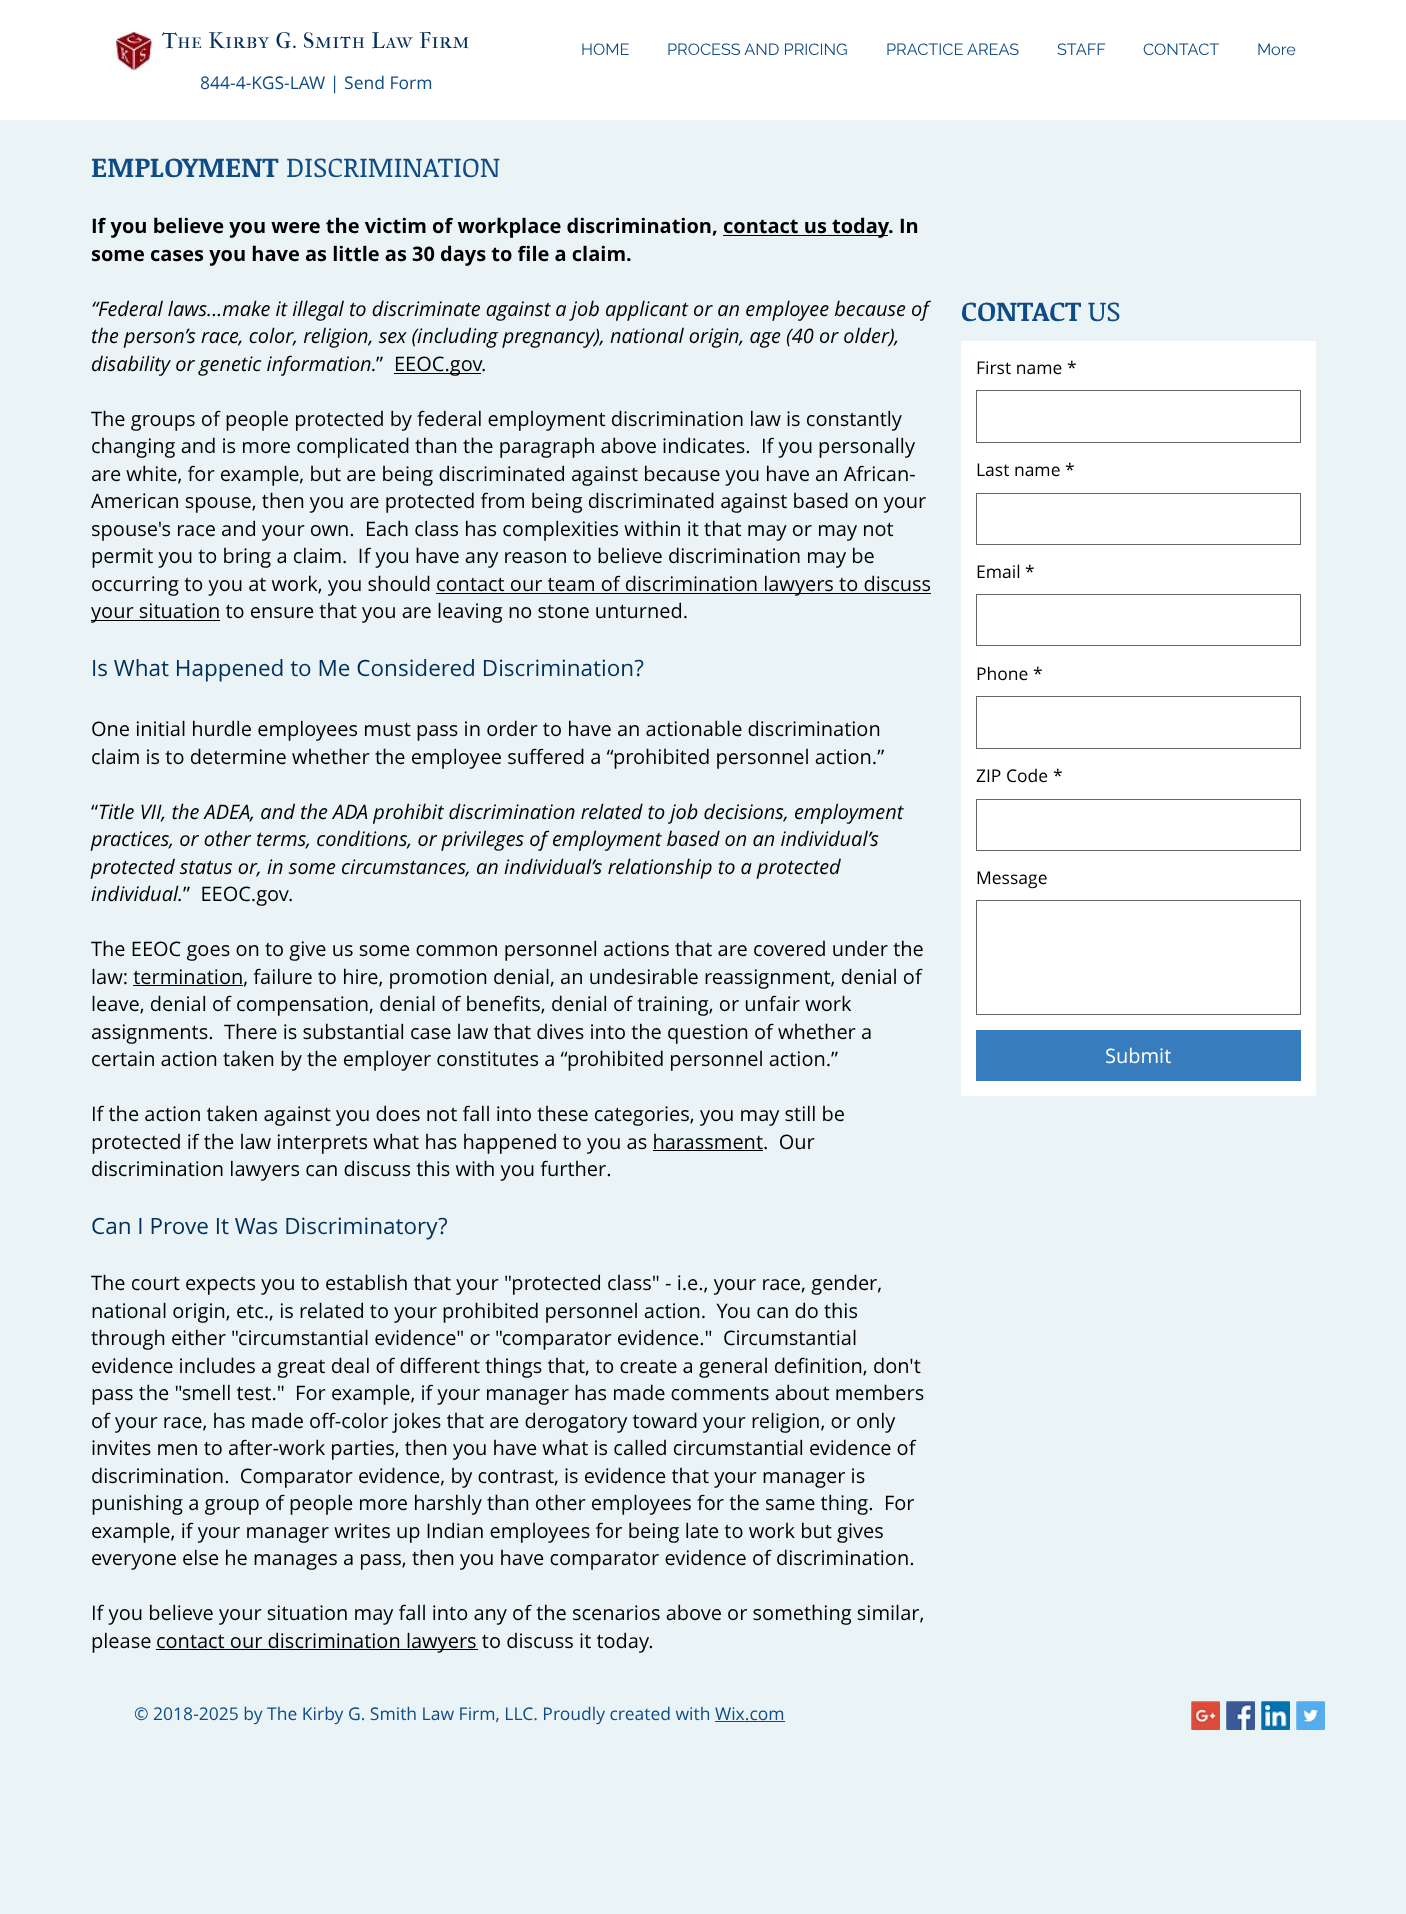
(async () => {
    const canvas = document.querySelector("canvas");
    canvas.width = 1406;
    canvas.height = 1914;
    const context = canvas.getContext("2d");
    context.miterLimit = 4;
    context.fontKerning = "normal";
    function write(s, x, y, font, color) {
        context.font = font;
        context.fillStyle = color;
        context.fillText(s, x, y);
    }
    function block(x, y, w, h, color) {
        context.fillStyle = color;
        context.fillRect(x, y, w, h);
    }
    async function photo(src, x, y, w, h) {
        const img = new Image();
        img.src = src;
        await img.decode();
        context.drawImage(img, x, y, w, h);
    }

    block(0, 0, 1406, 1914, "rgb(234, 244, 246)");
    block(0, 0, 1406, 120, "rgb(255, 255, 255)");
    await photo("media/1.png", 110, 28, 44, 44);
    context.letterSpacing = "0.7px";
    write("The Kirby G. Smith Law Firm", 162, 48, "22.5px IM FELL French Canon SC", "rgb(0, 48, 91)");
    context.letterSpacing = "0px";
    write("HOME", 581, 55, "16.25px Raleway", "rgb(15, 76, 133)");
    write("PROCESS AND PRICING", 667, 55, "16.25px Raleway", "rgb(15, 76, 133)");
    write("PRACTICE AREAS", 886, 55, "16.25px Raleway", "rgb(15, 76, 133)");
    write("STAFF", 1057, 55, "16.25px Raleway", "rgb(15, 76, 133)");
    write("CONTACT", 1143, 55, "16.25px Raleway", "rgb(15, 76, 133)");
    write("More", 1257, 55, "16.25px Raleway", "rgb(15, 76, 133)");
    write("844-4-KGS-LAW | Send Form", 200, 89, "17.5px Open Sans", "rgb(15, 76, 133)");
    write("EMPLOYMENT", 91, 177, "bold 27.5px Noticia Text", "rgb(15, 76, 133)");
    write("DISCRIMINATION", 286, 177, "27.5px Noticia Text", "rgb(15, 76, 133)");
    write("If you believe you were the victim of workplace discrimination,", 91, 233, "bold 20px Open Sans", "rgb(0, 0, 0)");
    block(723, 235, 165, 1, "rgb(0, 0, 0)");
    write("contact us today", 723, 233, "bold 20px Open Sans", "rgb(0, 0, 0)");
    write(". In", 888, 233, "bold 20px Open Sans", "rgb(0, 0, 0)");
    write("some cases you have as little as 30 days to file a claim.", 91, 261, "bold 20px Open Sans", "rgb(0, 0, 0)");
    write("“Federal laws...make it illegal to discriminate against a job applicant or an employee because of", 91, 316, "italic 20px Open Sans", "rgb(0, 0, 0)");
    write("the person’s race, color, religion, sex (including pregnancy), national origin, age (40 or older),", 91, 343, "italic 20px Open Sans", "rgb(0, 0, 0)");
    write("disability or genetic information.", 91, 371, "italic 20px Open Sans", "rgb(0, 0, 0)");
    write("”", 376, 371, "20px Open Sans", "rgb(0, 0, 0)");
    block(394, 373, 87, 1, "rgb(0, 0, 0)");
    write("EEOC.gov", 394, 371, "20px Open Sans", "rgb(0, 0, 0)");
    write(".", 481, 371, "20px Open Sans", "rgb(0, 0, 0)");
    write("The groups of people protected by federal employment discrimination law is constantly", 91, 426, "20px Open Sans", "rgb(0, 0, 0)");
    write("changing and is more complicated than the paragraph above indicates.  If you personally", 91, 453, "20px Open Sans", "rgb(0, 0, 0)");
    write("are white, for example, but are being discriminated against because you have an African-", 91, 481, "20px Open Sans", "rgb(0, 0, 0)");
    write("American spouse, then you are protected from being discriminated against based on your", 91, 508, "20px Open Sans", "rgb(0, 0, 0)");
    write("spouse's race and your own.  Each class has complexities within it that may or may not", 91, 536, "20px Open Sans", "rgb(0, 0, 0)");
    write("permit you to bring a claim.  If you have any reason to believe discrimination may be", 91, 563, "20px Open Sans", "rgb(0, 0, 0)");
    write("occurring to you at work, you should", 91, 591, "20px Open Sans", "rgb(0, 0, 0)");
    block(436, 593, 495, 1, "rgb(0, 0, 0)");
    write("contact our team of discrimination lawyers to discuss", 436, 591, "20px Open Sans", "rgb(0, 0, 0)");
    block(91, 620, 129, 1, "rgb(0, 0, 0)");
    write("your situation to ensure that you are leaving no stone unturned.", 91, 618, "20px Open Sans", "rgb(0, 0, 0)");
    write("Is What Happened to Me Considered Discrimination?", 91, 676, "22.5px Open Sans", "rgb(0, 48, 91)");
    write("One initial hurdle employees must pass in order to have an actionable discrimination", 91, 736, "20px Open Sans", "rgb(0, 0, 0)");
    write("claim is to determine whether the employee suffered a “prohibited personnel action.”", 91, 764, "20px Open Sans", "rgb(0, 0, 0)");
    write("“", 91, 819, "20px Open Sans", "rgb(0, 0, 0)");
    write("Title VII, the ADEA, and the ADA prohibit discrimination related to job decisions, employment", 98, 819, "italic 20px Open Sans", "rgb(0, 0, 0)");
    write("practices, or other terms, conditions, or privileges of employment based on an individual’s", 91, 846, "italic 20px Open Sans", "rgb(0, 0, 0)");
    write("protected status or, in some circumstances, an individual’s relationship to a protected", 91, 874, "italic 20px Open Sans", "rgb(0, 0, 0)");
    write("individual.", 91, 901, "italic 20px Open Sans", "rgb(0, 0, 0)");
    write("”  EEOC.gov.", 183, 901, "20px Open Sans", "rgb(0, 0, 0)");
    write("The EEOC goes on to give us some common personnel actions that are covered under the", 91, 956, "20px Open Sans", "rgb(0, 0, 0)");
    write("law: termination, failure to hire, promotion denial, an undesirable reassignment, denial of", 91, 984, "20px Open Sans", "rgb(0, 0, 0)");
    block(133, 985, 110, 1, "rgb(0, 0, 0)");
    write("leave, denial of compensation, denial of benefits, denial of training, or unfair work", 91, 1011, "20px Open Sans", "rgb(0, 0, 0)");
    write("assignments.  There is substantial case law that dives into the question of whether a", 91, 1039, "20px Open Sans", "rgb(0, 0, 0)");
    write("certain action taken by the employer constitutes a “prohibited personnel action.”", 91, 1066, "20px Open Sans", "rgb(0, 0, 0)");
    write("If the action taken against you does not fall into these categories, you may still be", 91, 1121, "20px Open Sans", "rgb(0, 0, 0)");
    write("protected if the law interprets what has happened to you as harassment.  Our", 91, 1149, "20px Open Sans", "rgb(0, 0, 0)");
    block(653, 1150, 110, 1, "rgb(0, 0, 0)");
    write("discrimination lawyers can discuss this with you further.", 91, 1176, "20px Open Sans", "rgb(0, 0, 0)");
    write("Can I Prove It Was Discriminatory?", 91, 1234, "22.5px Open Sans", "rgb(0, 48, 91)");
    write("The court expects you to establish that your \"protected class\" - i.e., your race, gender,", 91, 1290, "20px Open Sans", "rgb(0, 0, 0)");
    write("national origin, etc., is related to your prohibited personnel action.  You can do this", 91, 1318, "20px Open Sans", "rgb(0, 0, 0)");
    write("through either \"circumstantial evidence\" or \"comparator evidence.\"  Circumstantial", 91, 1345, "20px Open Sans", "rgb(0, 0, 0)");
    write("evidence includes a great deal of different things that, to create a general definition, don't", 91, 1373, "20px Open Sans", "rgb(0, 0, 0)");
    write("pass the \"smell test.\"  For example, if your manager has made comments about members", 91, 1400, "20px Open Sans", "rgb(0, 0, 0)");
    write("of your race, has made off-color jokes that are derogatory toward your religion, or only", 91, 1428, "20px Open Sans", "rgb(0, 0, 0)");
    write("invites men to after-work parties, then you have what is called circumstantial evidence of", 91, 1455, "20px Open Sans", "rgb(0, 0, 0)");
    write("discrimination.  Comparator evidence, by contrast, is evidence that your manager is", 91, 1483, "20px Open Sans", "rgb(0, 0, 0)");
    write("punishing a group of people more harshly than other employees for the same thing.  For", 91, 1510, "20px Open Sans", "rgb(0, 0, 0)");
    write("example, if your manager writes up Indian employees for being late to work but gives", 91, 1538, "20px Open Sans", "rgb(0, 0, 0)");
    write("everyone else he manages a pass, then you have comparator evidence of discrimination.", 91, 1565, "20px Open Sans", "rgb(0, 0, 0)");
    write("If you believe your situation may fall into any of the scenarios above or something similar,", 91, 1620, "20px Open Sans", "rgb(0, 0, 0)");
    write("please", 91, 1648, "20px Open Sans", "rgb(0, 0, 0)");
    block(156, 1649, 322, 1, "rgb(0, 0, 0)");
    write("contact our discrimination lawyers to discuss it today.", 156, 1648, "20px Open Sans", "rgb(0, 0, 0)");
    write("CONTACT", 961, 321, "bold 27.5px Noticia Text", "rgb(15, 76, 133)");
    write("US", 1088, 321, "27.5px Noticia Text", "rgb(15, 76, 133)");
    block(961, 341, 355, 755, "rgb(255, 255, 255)");
    write("First name", 976, 374, "17.5px Open Sans", "rgb(0, 0, 0)");
    write("*", 1067, 374, "17.5px Open Sans", "rgb(0, 0, 0)");
    context.strokeStyle = "rgb(102, 102, 102)";
    context.strokeRect(976.5, 390.5, 324, 52);
    write("Last name", 976, 476, "17.5px Open Sans", "rgb(0, 0, 0)");
    write("*", 1065, 476, "17.5px Open Sans", "rgb(0, 0, 0)");
    context.strokeRect(976.5, 493.5, 324, 51);
    write("Email", 976, 578, "17.5px Open Sans", "rgb(0, 0, 0)");
    write("*", 1025, 578, "17.5px Open Sans", "rgb(0, 0, 0)");
    context.strokeRect(976.5, 594.5, 324, 51);
    write("Phone", 976, 680, "17.5px Open Sans", "rgb(0, 0, 0)");
    write("*", 1033, 680, "17.5px Open Sans", "rgb(0, 0, 0)");
    context.strokeRect(976.5, 696.5, 324, 52);
    write("ZIP Code", 976, 782, "17.5px Open Sans", "rgb(0, 0, 0)");
    write("*", 1053, 782, "17.5px Open Sans", "rgb(0, 0, 0)");
    context.strokeRect(976.5, 799.5, 324, 51);
    write("Message", 976, 884, "17.5px Open Sans", "rgb(0, 0, 0)");
    context.strokeRect(976.5, 900.5, 324, 114);
    block(976, 1030, 325, 51, "rgb(55, 125, 189)");
    write("Submit", 1105, 1063, "20px Open Sans", "rgb(255, 255, 255)");
    write("© 2018-2025 by The Kirby G. Smith Law Firm, LLC. Proudly created with Wix.com", 134, 1720, "17.5px Open Sans", "rgb(15, 76, 133)");
    block(715, 1721, 70, 1, "rgb(15, 76, 133)");
    await photo("media/2.png", 1191, 1701, 29, 29);
    await photo("media/3.png", 1226, 1701, 29, 29);
    await photo("media/4.png", 1261, 1701, 29, 29);
    await photo("media/5.png", 1296, 1701, 29, 29);
})();
